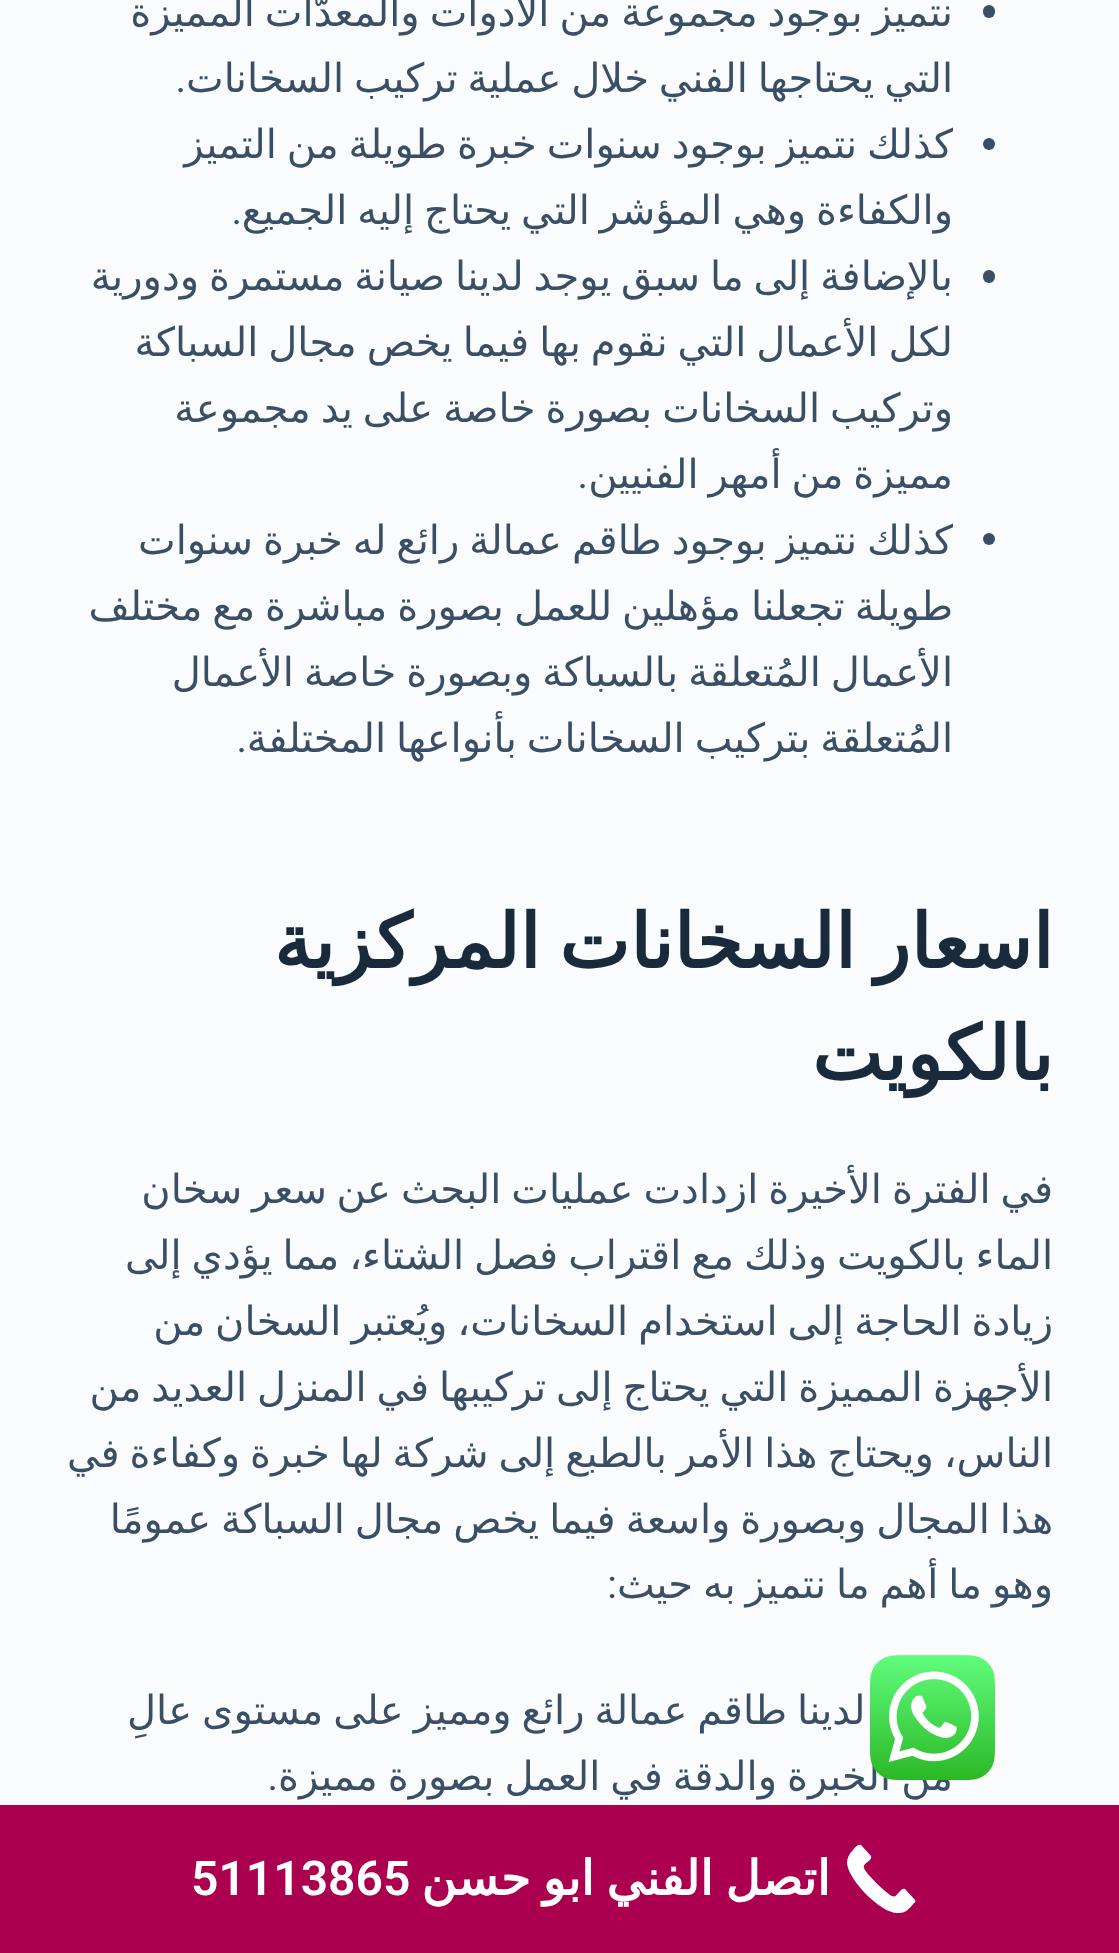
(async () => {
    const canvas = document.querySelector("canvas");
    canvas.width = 1119;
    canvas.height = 1953;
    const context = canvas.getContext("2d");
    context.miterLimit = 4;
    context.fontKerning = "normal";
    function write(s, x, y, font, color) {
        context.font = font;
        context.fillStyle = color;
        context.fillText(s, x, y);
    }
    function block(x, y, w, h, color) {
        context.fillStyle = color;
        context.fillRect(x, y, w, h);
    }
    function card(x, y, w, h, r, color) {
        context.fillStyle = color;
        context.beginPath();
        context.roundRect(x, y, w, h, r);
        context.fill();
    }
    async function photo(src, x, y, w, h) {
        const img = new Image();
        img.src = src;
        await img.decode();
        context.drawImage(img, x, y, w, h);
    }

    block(0, 0, 1119, 1953, "rgb(250, 251, 252)");
    card(983, 5, 12, 13, 6, "rgb(58, 79, 102)");
    context.wordSpacing = "-2.75px";
    context.direction = "rtl";
    write("نتميز بوجود مجموعة من الأدوات والمعدّات المميزة", 953, 26, "40px DejaVu Sans", "rgb(58, 79, 102)");
    write("التي يحتاجها الفني خلال عملية تركيب السخانات", 953, 92, "40px DejaVu Sans", "rgb(58, 79, 102)");
    context.wordSpacing = "0px";
    write(".", 186, 92, "40px Roboto", "rgb(58, 79, 102)");
    context.beginPath();
    context.arc(989, 144, 6, 0, Math.PI * 2);
    context.fill();
    context.wordSpacing = "-2.75px";
    write("كذلك نتميز بوجود سنوات خبرة طويلة من التميز", 953, 158, "40px DejaVu Sans", "rgb(58, 79, 102)");
    write("والكفاءة وهي المؤشر التي يحتاج إليه الجميع", 953, 224, "40px DejaVu Sans", "rgb(58, 79, 102)");
    context.wordSpacing = "0px";
    write(".", 242, 224, "40px Roboto", "rgb(58, 79, 102)");
    card(983, 270, 12, 13, 6, "rgb(58, 79, 102)");
    context.wordSpacing = "-2.75px";
    write("بالإضافة إلى ما سبق يوجد لدينا صيانة مستمرة ودورية", 953, 290, "40px DejaVu Sans", "rgb(58, 79, 102)");
    write("لكل الأعمال التي نقوم بها فيما يخص مجال السباكة", 953, 356, "40px DejaVu Sans", "rgb(58, 79, 102)");
    write("وتركيب السخانات بصورة خاصة على يد مجموعة", 953, 422, "40px DejaVu Sans", "rgb(58, 79, 102)");
    write("مميزة من أمهر الفنيين", 953, 488, "40px DejaVu Sans", "rgb(58, 79, 102)");
    context.wordSpacing = "0px";
    write(".", 588, 488, "40px Roboto", "rgb(58, 79, 102)");
    context.beginPath();
    context.arc(989, 539, 6, 0, Math.PI * 2);
    context.fill();
    context.wordSpacing = "-2.75px";
    write("كذلك نتميز بوجود طاقم عمالة رائع له خبرة سنوات", 953, 554, "40px DejaVu Sans", "rgb(58, 79, 102)");
    write("طويلة تجعلنا مؤهلين للعمل بصورة مباشرة مع مختلف", 953, 620, "40px DejaVu Sans", "rgb(58, 79, 102)");
    write("الأعمال المُتعلقة بالسباكة وبصورة خاصة الأعمال", 953, 686, "40px DejaVu Sans", "rgb(58, 79, 102)");
    write("المُتعلقة بتركيب السخانات بأنواعها المختلفة", 953, 752, "40px DejaVu Sans", "rgb(58, 79, 102)");
    context.wordSpacing = "0px";
    write(".", 247, 752, "40px Roboto", "rgb(58, 79, 102)");
    context.wordSpacing = "-5px";
    write("اسعار السخانات المركزية", 1053, 968, "bold 75px DejaVu Sans", "rgb(25, 42, 61)");
    context.wordSpacing = "0px";
    write("بالكويت", 1053, 1080, "bold 75px DejaVu Sans", "rgb(25, 42, 61)");
    context.wordSpacing = "-2.75px";
    write("في الفترة الأخيرة ازدادت عمليات البحث عن", 1053, 1203, "40px DejaVu Sans", "rgb(58, 79, 102)");
    write("سعر سخان", 327, 1203, "40px DejaVu Sans", "rgb(58, 79, 102)");
    write("الماء بالكويت", 1053, 1269, "40px DejaVu Sans", "rgb(58, 79, 102)");
    write("وذلك مع اقتراب فصل الشتاء، مما يؤدي إلى", 827, 1269, "40px DejaVu Sans", "rgb(58, 79, 102)");
    write("زيادة الحاجة إلى استخدام السخانات، ويُعتبر السخان من", 1053, 1335, "40px DejaVu Sans", "rgb(58, 79, 102)");
    write("الأجهزة المميزة التي يحتاج إلى تركيبها في المنزل العديد من", 1053, 1401, "40px DejaVu Sans", "rgb(58, 79, 102)");
    write("الناس، ويحتاج هذا الأمر بالطبع إلى شركة لها خبرة وكفاءة في", 1053, 1467, "40px DejaVu Sans", "rgb(58, 79, 102)");
    write("هذا المجال وبصورة واسعة فيما يخص مجال السباكة عمومًا", 1053, 1533, "40px DejaVu Sans", "rgb(58, 79, 102)");
    write("وهو ما أهم ما نتميز به حيث", 1053, 1598, "40px DejaVu Sans", "rgb(58, 79, 102)");
    context.wordSpacing = "0px";
    write(":", 617, 1598, "40px Roboto", "rgb(58, 79, 102)");
    context.wordSpacing = "-2.75px";
    write("يوجد لدينا طاقم عمالة رائع ومميز على مستوى عالِ", 953, 1724, "40px DejaVu Sans", "rgb(58, 79, 102)");
    write("من الخبرة والدقة في العمل بصورة مميزة", 953, 1790, "40px DejaVu Sans", "rgb(58, 79, 102)");
    context.wordSpacing = "0px";
    write(".", 278, 1790, "40px Roboto", "rgb(58, 79, 102)");
    await photo("media/1.png", 870, 1655, 125, 125);
    block(0, 1805, 1119, 148, "rgb(170, 0, 79)");
    context.fillStyle = "rgb(255, 255, 255)";
    context.beginPath();
    context.moveTo(914, 1903);
    context.bezierCurveTo(910, 1908, 906, 1913, 899, 1913);
    context.bezierCurveTo(882, 1915, 848, 1880, 847, 1863);
    context.bezierCurveTo(847, 1858, 849, 1854, 853, 1850);
    context.bezierCurveTo(854, 1849, 857, 1844, 861, 1845);
    context.lineTo(871, 1856);
    context.bezierCurveTo(873, 1861, 862, 1863, 864, 1868);
    context.bezierCurveTo(865, 1873, 887, 1894, 892, 1896);
    context.bezierCurveTo(897, 1899, 900, 1887, 905, 1889);
    context.lineTo(915, 1900);
    context.bezierCurveTo(916, 1901, 915, 1903, 914, 1903);
    context.closePath();
    context.fill();
    context.wordSpacing = "-3px";
    write("اتصل الفني ابو حسن", 830, 1895, "bold 48px DejaVu Sans", "rgb(255, 255, 255)");
    context.wordSpacing = "0px";
    context.direction = "ltr";
    write("51113865", 191, 1895, "600 48px Roboto", "rgb(255, 255, 255)");
})();
